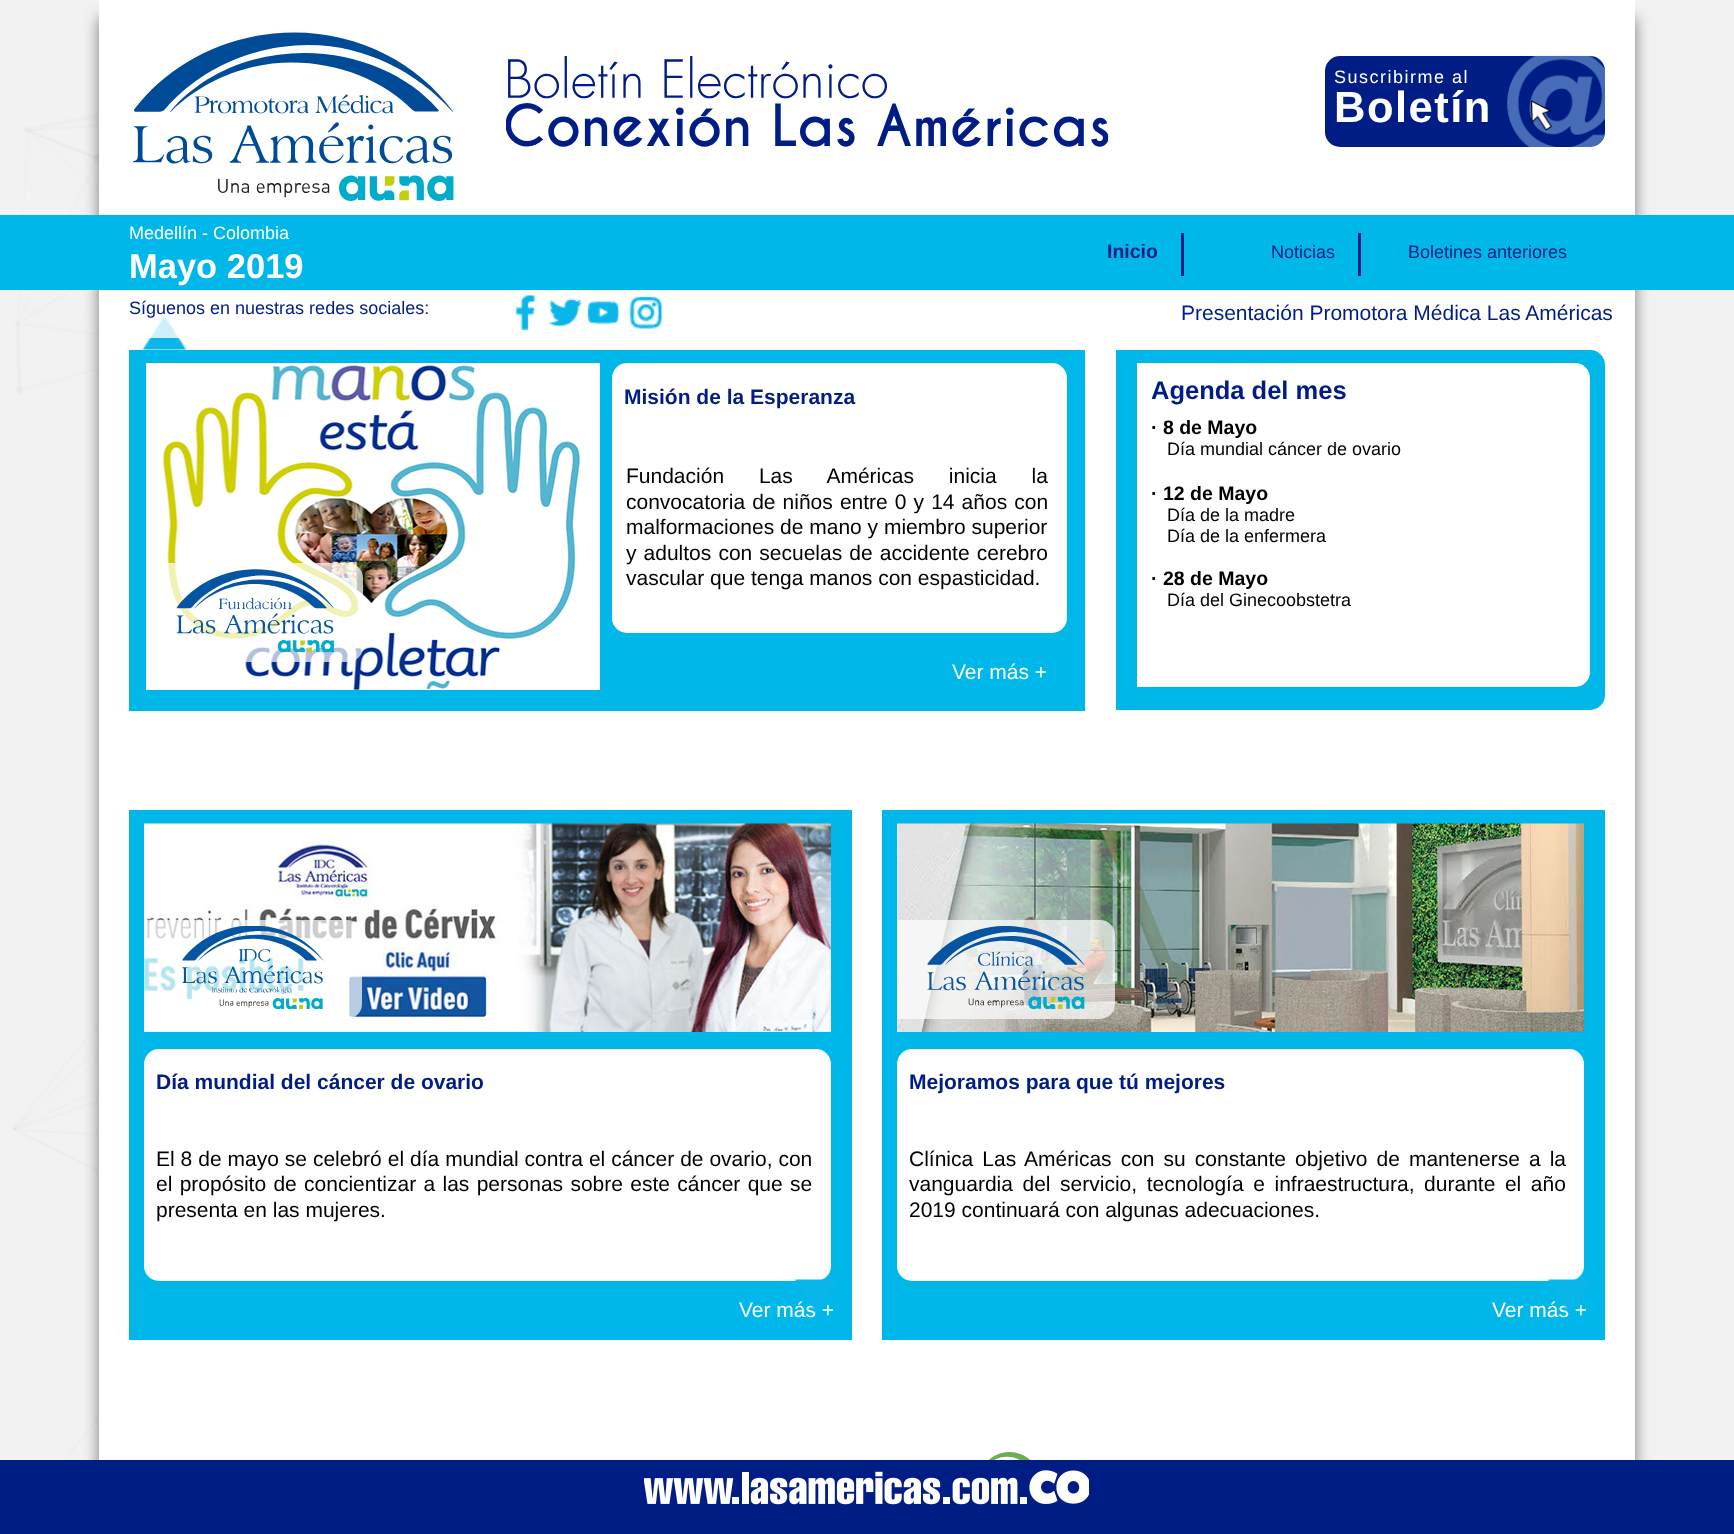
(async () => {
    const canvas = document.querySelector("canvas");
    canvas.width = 1734;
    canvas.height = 1534;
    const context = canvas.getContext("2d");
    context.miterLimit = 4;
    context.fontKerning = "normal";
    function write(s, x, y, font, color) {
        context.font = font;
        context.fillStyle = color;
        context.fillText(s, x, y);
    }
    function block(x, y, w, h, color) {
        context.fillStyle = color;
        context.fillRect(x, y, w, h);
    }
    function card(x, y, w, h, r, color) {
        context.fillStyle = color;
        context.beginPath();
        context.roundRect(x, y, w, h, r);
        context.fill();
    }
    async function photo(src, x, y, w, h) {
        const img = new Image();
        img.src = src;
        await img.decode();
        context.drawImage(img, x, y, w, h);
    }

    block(0, 0, 1734, 1534, "rgb(242, 242, 242)");
    await photo("media/1.png", 13, 112, 86, 1348);
    context.fillStyle = "rgba(0, 0, 0, 0.5)";
    context.filter = "blur(7.5px)";
    context.beginPath();
    context.rect(99, 18, 1536, 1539);
    context.fill();
    context.filter = "none";
    block(99, 0, 1536, 1460, "rgb(255, 255, 255)");
    await photo("media/2.png", 133, 32, 321, 169);
    await photo("media/3.png", 506, 56, 603, 91);
    card(1325, 56, 280, 91, 15, "rgb(0, 29, 133)");
    await photo("media/4.png", 1507, 55, 98, 92);
    context.letterSpacing = "1.5px";
    write("Suscribirme al", 1334, 83, "18px Liberation Sans", "rgb(255, 255, 255)");
    write("Boletín", 1334, 122, "bold 43.5px Liberation Sans", "rgb(255, 255, 255)");
    await photo("media/5.png", 142, 315, 45, 35);
    block(129, 350, 956, 361, "rgb(0, 183, 234)");
    block(146, 363, 454, 327, "rgb(255, 255, 255)");
    await photo("media/6.png", 163, 365, 437, 325);
    context.fillStyle = "rgba(255, 255, 255, 0.7)";
    context.beginPath();
    context.roundRect(146, 563, 217, 99, [0, 15, 15, 0]);
    context.fill();
    await photo("media/7.png", 176, 569, 158, 84);
    card(612, 363, 455, 270, 15, "rgb(255, 255, 255)");
    context.letterSpacing = "0px";
    write("Misión de la Esperanza", 624, 404, "bold 21px Liberation Sans", "rgb(0, 29, 133)");
    context.wordSpacing = "29px";
    write("Fundación Las Américas inicia la", 626, 483, "21px Liberation Sans", "rgb(0, 0, 0)");
    context.wordSpacing = "1.25px";
    write("convocatoria de niños entre 0 y 14 años con", 626, 509, "21px Liberation Sans", "rgb(0, 0, 0)");
    context.wordSpacing = "0px";
    write("malformaciones de mano y miembro superior", 626, 534, "21px Liberation Sans", "rgb(0, 0, 0)");
    context.wordSpacing = "1.25px";
    write("y adultos con secuelas de accidente cerebro", 626, 560, "21px Liberation Sans", "rgb(0, 0, 0)");
    context.wordSpacing = "0px";
    write("vascular que tenga manos con espasticidad.", 626, 585, "21px Liberation Sans", "rgb(0, 0, 0)");
    write("Ver más +", 952, 679, "21px Liberation Sans", "rgb(255, 255, 255)");
    context.fillStyle = "rgb(0, 183, 234)";
    context.beginPath();
    context.roundRect(1116, 350, 489, 360, [0, 15, 15, 0]);
    context.fill();
    context.fillStyle = "rgb(255, 255, 255)";
    context.beginPath();
    context.roundRect(1137, 363, 453, 324, [0, 15, 15, 0]);
    context.fill();
    write("Agenda del mes", 1151, 399, "bold 25.5px Liberation Sans", "rgb(0, 29, 133)");
    write("· 8 de Mayo", 1151, 434, "bold 19.5px Liberation Sans", "rgb(0, 0, 0)");
    write("Día mundial cáncer de ovario", 1167, 455, "18px Liberation Sans", "rgb(0, 0, 0)");
    write("· 12 de Mayo", 1151, 500, "bold 19.5px Liberation Sans", "rgb(0, 0, 0)");
    write("Día de la madre", 1167, 521, "18px Liberation Sans", "rgb(0, 0, 0)");
    write("Día de la enfermera", 1167, 542, "18px Liberation Sans", "rgb(0, 0, 0)");
    write("· 28 de Mayo", 1151, 585, "bold 19.5px Liberation Sans", "rgb(0, 0, 0)");
    write("Día del Ginecoobstetra", 1167, 606, "18px Liberation Sans", "rgb(0, 0, 0)");
    block(129, 810, 723, 530, "rgb(0, 183, 234)");
    await photo("media/8.png", 144, 823, 687, 209);
    context.fillStyle = "rgba(255, 255, 255, 0.7)";
    context.beginPath();
    context.roundRect(144, 920, 218, 99, [0, 15, 15, 0]);
    context.fill();
    await photo("media/9.png", 181, 926, 143, 84);
    card(144, 1049, 687, 232, 15, "rgb(255, 255, 255)");
    write("Día mundial del cáncer de ovario", 156, 1089, "bold 21px Liberation Sans", "rgb(0, 29, 133)");
    context.wordSpacing = "0.1px";
    write("El 8 de mayo se celebró el día mundial contra el cáncer de ovario, con", 156, 1166, "21px Liberation Sans", "rgb(0, 0, 0)");
    context.wordSpacing = "1.5px";
    write("el propósito de concientizar a las personas sobre este cáncer que se", 156, 1191, "21px Liberation Sans", "rgb(0, 0, 0)");
    context.wordSpacing = "0px";
    write("presenta en las mujeres.", 156, 1217, "21px Liberation Sans", "rgb(0, 0, 0)");
    write("Ver más +", 739, 1317, "21px Liberation Sans", "rgb(255, 255, 255)");
    block(882, 810, 723, 530, "rgb(0, 183, 234)");
    await photo("media/10.png", 897, 823, 687, 209);
    context.fillStyle = "rgba(255, 255, 255, 0.7)";
    context.beginPath();
    context.roundRect(897, 920, 218, 99, [0, 15, 15, 0]);
    context.fill();
    await photo("media/11.png", 927, 926, 158, 84);
    card(897, 1049, 687, 232, 15, "rgb(255, 255, 255)");
    write("Mejoramos para que tú mejores", 909, 1089, "bold 21px Liberation Sans", "rgb(0, 29, 133)");
    context.wordSpacing = "3.25px";
    write("Clínica Las Américas con su constante objetivo de mantenerse a la", 909, 1166, "21px Liberation Sans", "rgb(0, 0, 0)");
    context.wordSpacing = "3.75px";
    write("vanguardia del servicio, tecnología e infraestructura, durante el año", 909, 1191, "21px Liberation Sans", "rgb(0, 0, 0)");
    context.wordSpacing = "0px";
    write("2019 continuará con algunas adecuaciones.", 909, 1217, "21px Liberation Sans", "rgb(0, 0, 0)");
    write("Ver más +", 1492, 1317, "21px Liberation Sans", "rgb(255, 255, 255)");
    await photo("media/12.png", 988, 1452, 42, 8);
    await photo("media/13.png", 794, 1279, 43, 34);
    await photo("media/13.png", 1547, 1279, 43, 34);
    block(0, 215, 1734, 75, "rgb(0, 183, 234)");
    write("Medellín - Colombia", 129, 239, "18px Liberation Sans", "rgb(255, 255, 255)");
    write("Mayo 2019", 129, 278, "bold 34.5px Liberation Sans", "rgb(255, 255, 255)");
    block(1181, 233, 3, 43, "rgb(0, 29, 133)");
    write("Inicio", 1107, 258, "bold 19.5px Liberation Sans", "rgb(0, 29, 133)");
    block(1358, 233, 3, 43, "rgb(0, 29, 133)");
    write("Noticias", 1271, 258, "18px Liberation Sans", "rgb(0, 29, 133)");
    write("Boletines anteriores", 1408, 258, "18px Liberation Sans", "rgb(0, 29, 133)");
    block(148, 315, 33, 23, "rgba(255, 255, 255, 0.8)");
    write("Síguenos en nuestras redes sociales:", 129, 314, "18px Liberation Sans", "rgb(0, 29, 133)");
    await photo("media/14.png", 515, 295, 21, 36);
    await photo("media/15.png", 548, 298, 35, 30);
    await photo("media/16.png", 587, 301, 33, 24);
    await photo("media/17.png", 629, 296, 33, 33);
    write("Presentación Promotora Médica Las Américas", 1181, 320, "21px Liberation Sans", "rgb(0, 29, 133)");
    block(0, 1460, 1734, 74, "rgb(0, 29, 133)");
    await photo("media/18.png", 644, 1470, 445, 35);
})();
